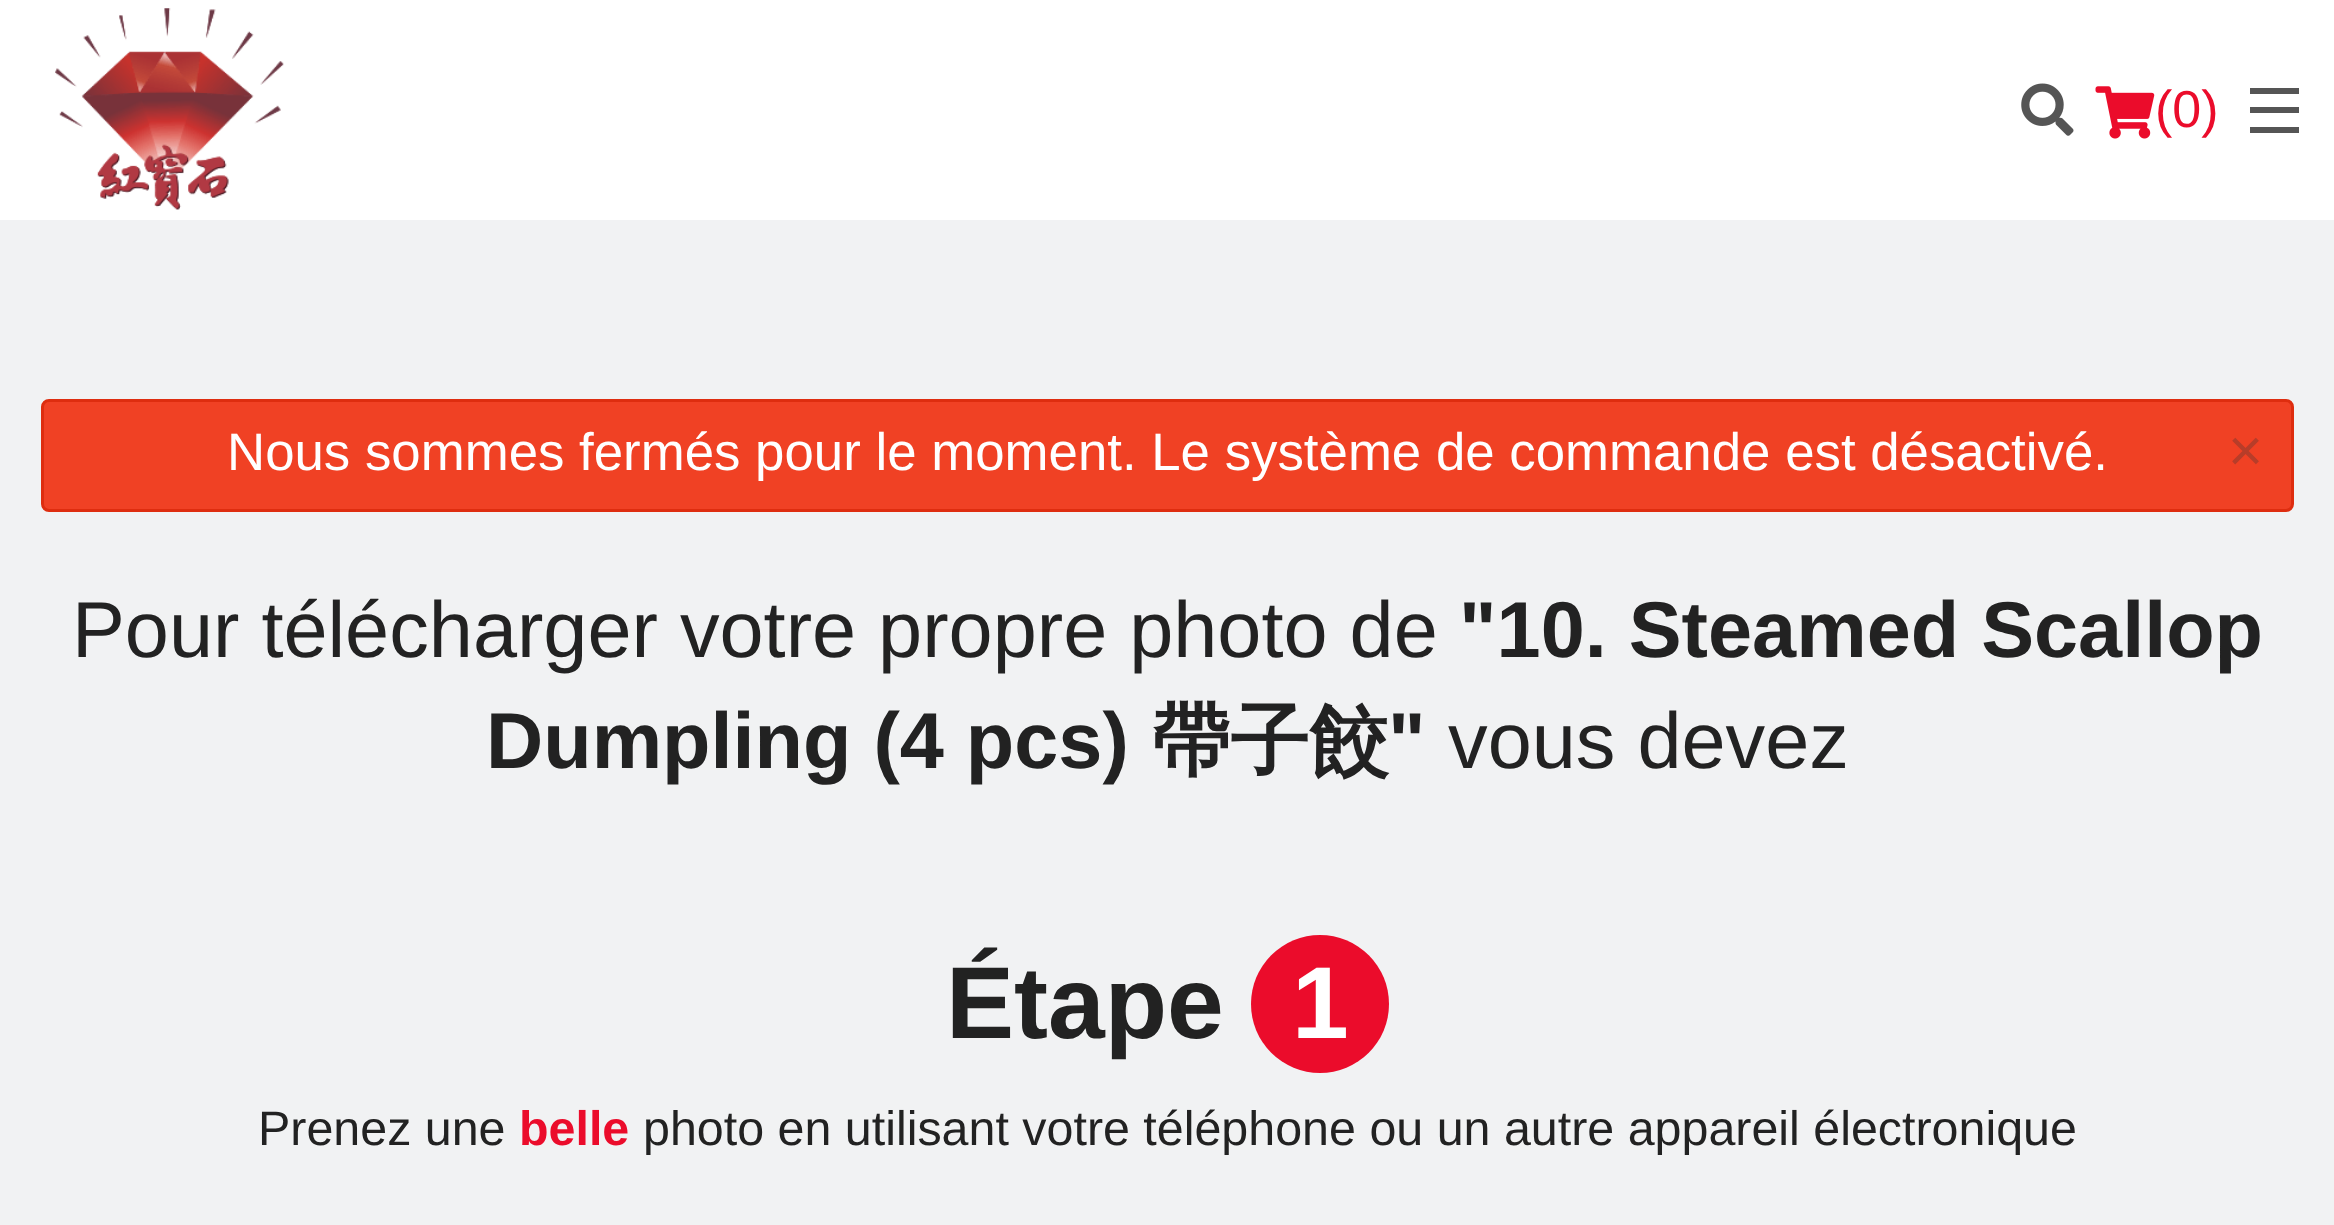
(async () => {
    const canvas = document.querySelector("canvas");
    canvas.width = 2334;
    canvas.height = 1225;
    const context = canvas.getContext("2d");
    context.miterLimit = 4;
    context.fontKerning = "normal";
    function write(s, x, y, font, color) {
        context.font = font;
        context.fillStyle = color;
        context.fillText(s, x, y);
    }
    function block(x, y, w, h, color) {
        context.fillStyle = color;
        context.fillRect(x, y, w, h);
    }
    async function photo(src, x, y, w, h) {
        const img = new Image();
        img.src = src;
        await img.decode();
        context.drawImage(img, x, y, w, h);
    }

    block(0, 0, 2334, 1225, "rgb(241, 242, 243)");
    block(0, 0, 2334, 220, "rgb(255, 255, 255)");
    await photo("media/1.png", 55, 8, 229, 202);
    await photo("media/2.png", 2021, 83, 53, 53);
    await photo("media/3.png", 2095, 86, 60, 53);
    write("(0)", 2155, 127, "52px Liberation Sans", "rgb(235, 12, 43)");
    block(2250, 127, 49, 6, "rgb(85, 85, 85)");
    block(2250, 107, 49, 6, "rgb(85, 85, 85)");
    block(2250, 88, 49, 6, "rgb(85, 85, 85)");
    context.fillStyle = "rgb(240, 65, 36)";
    context.beginPath();
    context.roundRect(42.5, 400.5, 2250, 110, 6.5);
    context.fill();
    context.strokeStyle = "rgb(222, 45, 15)";
    context.lineWidth = 3;
    context.stroke();
    write("Nous sommes fermés pour le moment. Le système de commande est désactivé.", 227, 470, "52.8px Liberation Sans", "rgb(255, 255, 255)");
    write("×", 2228, 471, "60px Liberation Sans", "rgb(183, 61, 41)");
    write("Pour télécharger votre propre photo de", 72, 657, "79.25px Liberation Sans", "rgb(34, 34, 34)");
    write("\"10. Steamed Scallop", 1459, 657, "bold 79.25px Liberation Sans", "rgb(34, 34, 34)");
    write("Dumpling (4 pcs)", 486, 768, "bold 79.25px Liberation Sans", "rgb(34, 34, 34)");
    write("帶子餃", 1151, 768, "bold 79.25px WenQuanYi Zen Hei", "rgb(34, 34, 34)");
    write("\"", 1388, 768, "bold 79.25px Liberation Sans", "rgb(34, 34, 34)");
    write("vous devez", 1448, 768, "79.25px Liberation Sans", "rgb(34, 34, 34)");
    write("Étape", 946, 1038, "bold 102px Liberation Sans", "rgb(34, 34, 34)");
    context.fillStyle = "rgb(235, 12, 43)";
    context.beginPath();
    context.arc(1320, 1004, 69, 0, Math.PI * 2);
    context.fill();
    write("1", 1292, 1038, "bold 102px Liberation Sans", "rgb(255, 255, 255)");
    write("Prenez une", 258, 1145, "48.4px Liberation Sans", "rgb(34, 34, 34)");
    write("belle", 519, 1145, "bold 48.4px Liberation Sans", "rgb(235, 12, 43)");
    write("photo en utilisant votre téléphone ou un autre appareil électronique", 643, 1145, "48.4px Liberation Sans", "rgb(34, 34, 34)");
})();
